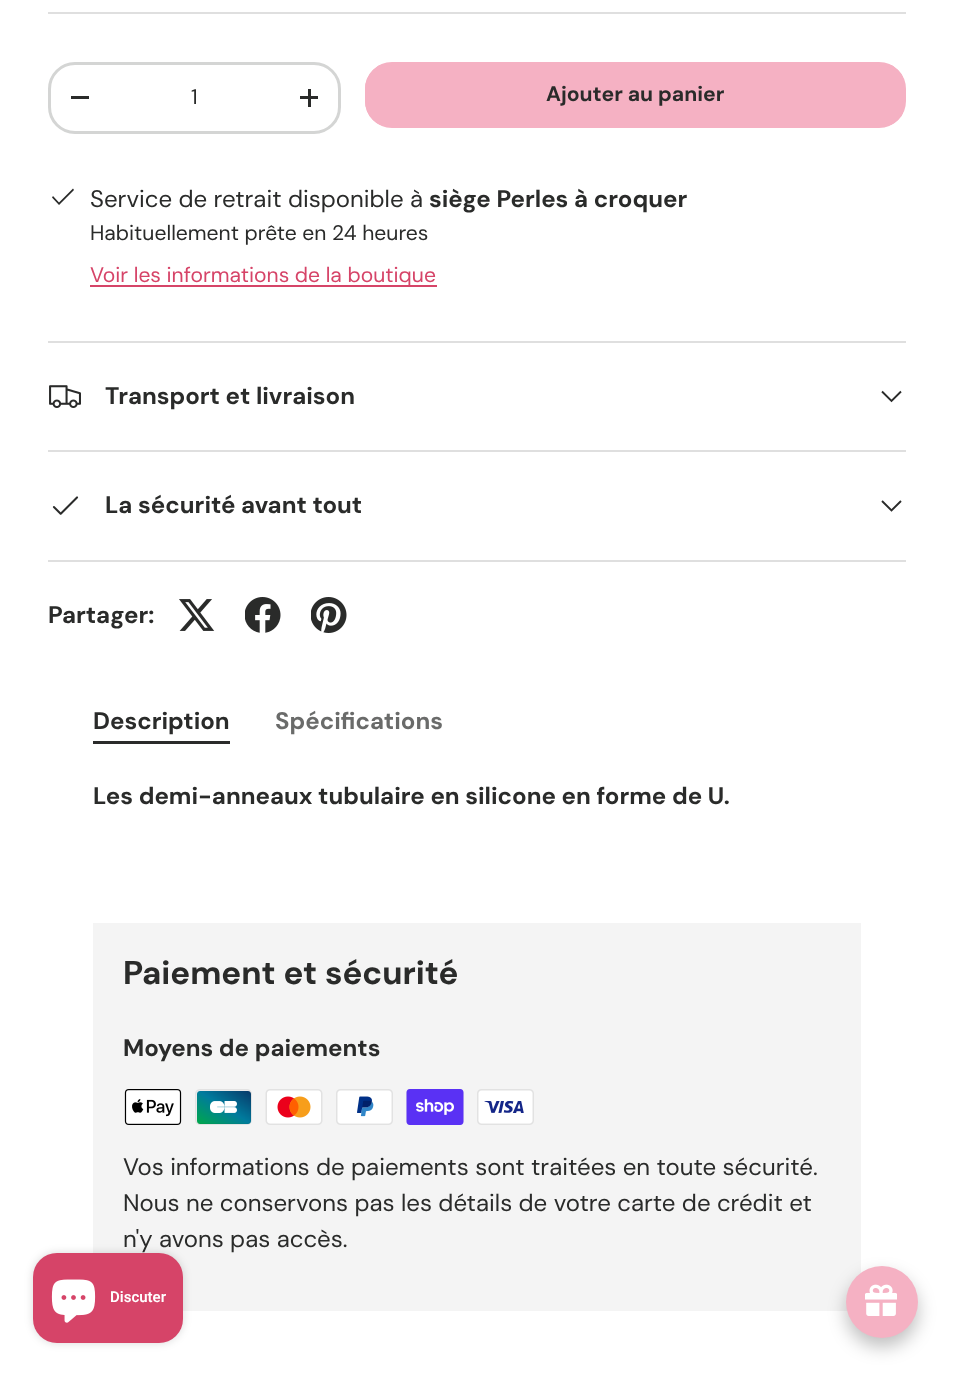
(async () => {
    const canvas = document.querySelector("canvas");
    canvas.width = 954;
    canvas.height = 1374;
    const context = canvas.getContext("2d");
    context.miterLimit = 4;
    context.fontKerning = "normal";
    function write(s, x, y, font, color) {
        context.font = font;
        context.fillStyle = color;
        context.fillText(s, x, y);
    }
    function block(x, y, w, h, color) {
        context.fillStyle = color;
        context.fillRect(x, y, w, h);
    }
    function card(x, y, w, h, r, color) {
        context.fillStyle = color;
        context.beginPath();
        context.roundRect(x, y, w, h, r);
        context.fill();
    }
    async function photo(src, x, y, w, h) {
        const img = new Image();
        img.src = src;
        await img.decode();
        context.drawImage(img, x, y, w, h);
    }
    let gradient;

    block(0, 0, 954, 1374, "rgb(255, 255, 255)");
    block(48, 12, 858, 2, "rgb(223, 223, 223)");
    context.beginPath();
    context.roundRect(49.5, 63.5, 290, 69, 25.5);
    context.strokeStyle = "rgb(212, 213, 212)";
    context.lineWidth = 3;
    context.stroke();
    block(71, 96, 18, 3, "rgb(42, 43, 42)");
    write("1", 191, 104, "21.1px DM Sans", "rgb(42, 43, 42)");
    block(300, 96, 18, 3, "rgb(42, 43, 42)");
    block(308, 89, 3, 18, "rgb(42, 43, 42)");
    context.save();
    context.beginPath();
    context.roundRect(365, 62, 541, 66, 27);
    context.clip();
    gradient = context.createLinearGradient(-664, -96, 863, 285);
    gradient.addColorStop(0.6, "rgb(219, 168, 181)");
    gradient.addColorStop(0.6, "rgb(245, 177, 195)");
    gradient.addColorStop(1, "rgb(245, 177, 195)");
    context.fillStyle = gradient;
    context.fillRect(365, 65, 538, 60);
    context.restore();
    context.beginPath();
    context.roundRect(366.5, 63.5, 538, 63, 25.5);
    context.strokeStyle = "rgb(245, 177, 195)";
    context.stroke();
    write("Ajouter au panier", 546, 101, "bold 21.1px 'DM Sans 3'", "rgb(42, 43, 42)");
    context.beginPath();
    context.moveTo(73, 188.5);
    context.lineTo(74, 190);
    context.lineTo(59, 205);
    context.lineTo(52, 197.5);
    context.lineTo(53, 196);
    context.lineTo(59, 202.5);
    context.closePath();
    context.fill();
    write("Service de retrait disponible à", 90, 207, "24px 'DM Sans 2'", "rgb(42, 43, 42)");
    write("siège Perles à croquer", 429, 207, "bold 24px DM Sans", "rgb(42, 43, 42)");
    write("Habituellement prête en 24 heures", 90, 240, "21.1px DM Sans", "rgb(42, 43, 42)");
    block(90, 285, 347, 2, "rgb(214, 68, 104)");
    write("Voir les informations de la boutique", 90, 282, "21.1px DM Sans", "rgb(214, 68, 104)");
    block(48, 341, 858, 2, "rgb(223, 223, 223)");
    block(48, 450, 858, 2, "rgb(223, 223, 223)");
    await photo("media/1.png", 49, 385, 32, 23);
    write("Transport et livraison", 105, 404, "bold 24px DM Sans", "rgb(42, 43, 42)");
    context.beginPath();
    context.moveTo(901, 391.5);
    context.lineTo(891.5, 401);
    context.lineTo(882, 391.5);
    context.strokeStyle = "rgb(42, 43, 42)";
    context.lineWidth = 1.9;
    context.stroke();
    block(48, 560, 858, 2, "rgb(223, 223, 223)");
    await photo("media/2.png", 52, 496, 27, 19);
    write("La sécurité avant tout", 105, 513, "bold 24px DM Sans", "rgb(42, 43, 42)");
    context.beginPath();
    context.moveTo(901, 501);
    context.lineTo(891.5, 510.5);
    context.lineTo(882, 501);
    context.stroke();
    write("Partager:", 48, 623, "bold 24px DM Sans", "rgb(42, 43, 42)");
    await photo("media/3.png", 179, 599, 36, 32);
    await photo("media/4.png", 245, 597, 36, 36);
    await photo("media/5.png", 311, 597, 36, 36);
    write("Description", 93, 729, "bold 24px DM Sans", "rgb(42, 43, 42)");
    block(93, 741, 137, 3, "rgb(42, 43, 42)");
    write("Spécifications", 275, 729, "bold 24px DM Sans", "rgb(106, 107, 106)");
    write("Les demi-anneaux tubulaire en silicone en forme de U.", 93, 804, "bold 24px DM Sans", "rgb(42, 43, 42)");
    block(93, 923, 768, 388, "rgb(244, 244, 244)");
    write("Paiement et sécurité", 123, 984, "bold 33px 'DM Sans 2'", "rgb(42, 43, 42)");
    write("Moyens de paiements", 123, 1056, "bold 24px DM Sans", "rgb(42, 43, 42)");
    await photo("media/6.png", 124, 1089, 58, 36);
    await photo("media/7.png", 195, 1089, 57, 36);
    await photo("media/8.png", 265, 1089, 58, 36);
    await photo("media/9.png", 336, 1089, 57, 36);
    await photo("media/10.png", 406, 1089, 58, 36);
    await photo("media/11.png", 477, 1089, 57, 36);
    write("Vos informations de paiements sont traitées en toute sécurité.", 123, 1175, "24px 'DM Sans 2'", "rgb(42, 43, 42)");
    write("Nous ne conservons pas les détails de votre carte de crédit et", 123, 1211, "24px 'DM Sans 2'", "rgb(42, 43, 42)");
    write("n'y avons pas accès.", 123, 1247, "24px 'DM Sans 2'", "rgb(42, 43, 42)");
    context.fillStyle = "rgba(0, 0, 0, 0.15)";
    context.filter = "blur(4px)";
    context.beginPath();
    context.roundRect(33, 1253, 150, 90, 24);
    context.fill();
    context.filter = "none";
    card(33, 1253, 150, 90, 24, "rgb(214, 68, 104)");
    await photo("media/12.png", 51, 1279, 45, 44);
    write("Discuter", 110, 1302, "600 15px Roboto", "rgb(255, 255, 255)");
    context.fillStyle = "rgba(0, 0, 0, 0.25)";
    context.filter = "blur(9px)";
    context.beginPath();
    context.roundRect(846, 1275, 72, 72, 36);
    context.fill();
    context.filter = "none";
    context.fillStyle = "rgb(245, 177, 195)";
    context.beginPath();
    context.arc(882, 1302, 36, 0, Math.PI * 2);
    context.fill();
    await photo("media/13.png", 865, 1284, 32, 32);
})();
